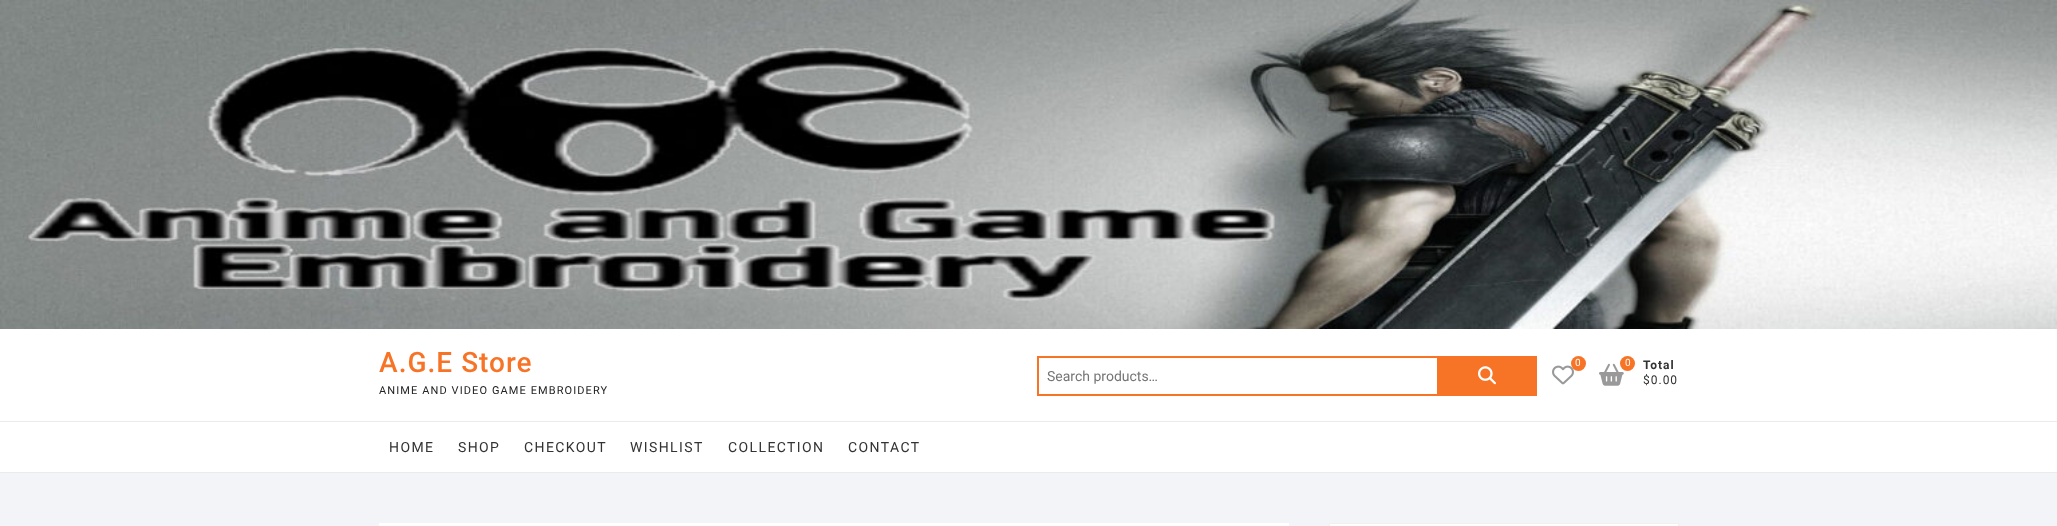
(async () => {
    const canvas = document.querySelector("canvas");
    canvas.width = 2057;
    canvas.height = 526;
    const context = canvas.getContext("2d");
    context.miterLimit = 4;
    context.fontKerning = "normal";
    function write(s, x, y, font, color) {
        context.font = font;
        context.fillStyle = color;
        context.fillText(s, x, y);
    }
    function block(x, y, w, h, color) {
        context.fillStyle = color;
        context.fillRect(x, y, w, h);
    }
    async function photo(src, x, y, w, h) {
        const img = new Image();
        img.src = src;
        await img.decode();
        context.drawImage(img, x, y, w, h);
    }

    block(0, 0, 2057, 526, "rgb(243, 244, 248)");
    block(0, 329, 2057, 143, "rgb(255, 255, 255)");
    await photo("media/1.png", 0, 0, 2057, 329);
    context.letterSpacing = "1px";
    write("A.G.E Store", 379, 372, "500 28px Roboto", "rgb(247, 116, 38)");
    context.letterSpacing = "1.1px";
    write("ANIME AND VIDEO GAME EMBROIDERY", 379, 394, "11px Roboto", "rgb(34, 34, 34)");
    block(1037, 356, 400, 2, "rgb(247, 116, 38)");
    block(1037, 394, 400, 2, "rgb(247, 116, 38)");
    block(1037, 356, 2, 40, "rgb(247, 116, 38)");
    context.letterSpacing = "0px";
    write("Search products…", 1047, 381, "14px Roboto", "rgb(117, 117, 117)");
    block(1437, 356, 100, 40, "rgb(247, 116, 38)");
    await photo("media/2.png", 1478, 366, 18, 19);
    await photo("media/3.png", 1552, 365, 22, 20);
    context.beginPath();
    context.arc(1578.5, 363.5, 7.5, 0, Math.PI * 2);
    context.fill();
    write("0", 1575, 366, "10px Roboto", "rgb(255, 255, 255)");
    await photo("media/4.png", 1599, 363, 25, 23);
    context.fillStyle = "rgb(247, 116, 38)";
    context.beginPath();
    context.arc(1627.5, 363.5, 7.5, 0, Math.PI * 2);
    context.fill();
    write("0", 1625, 366, "10px Roboto", "rgb(255, 255, 255)");
    context.letterSpacing = "1px";
    write("Total", 1643, 369, "bold 12px Roboto", "rgb(51, 51, 51)");
    write("$0.00", 1643, 384, "12px Roboto", "rgb(51, 51, 51)");
    block(0, 421, 2057, 1, "rgb(235, 235, 235)");
    block(0, 472, 2057, 1, "rgb(235, 235, 235)");
    context.letterSpacing = "1.4px";
    write("HOME", 389, 452, "14px Roboto", "rgb(51, 51, 51)");
    write("SHOP", 458, 452, "14px Roboto", "rgb(51, 51, 51)");
    write("CHECKOUT", 524, 452, "14px Roboto", "rgb(51, 51, 51)");
    write("WISHLIST", 630, 452, "14px Roboto", "rgb(51, 51, 51)");
    write("COLLECTION", 728, 452, "14px Roboto", "rgb(51, 51, 51)");
    write("CONTACT", 848, 452, "14px Roboto", "rgb(51, 51, 51)");
    block(379, 523, 910, 3, "rgb(255, 255, 255)");
    context.beginPath();
    context.rect(1329.5, 523.5, 349, 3);
    context.fill();
    context.strokeStyle = "rgb(240, 240, 240)";
    context.stroke();
})();
